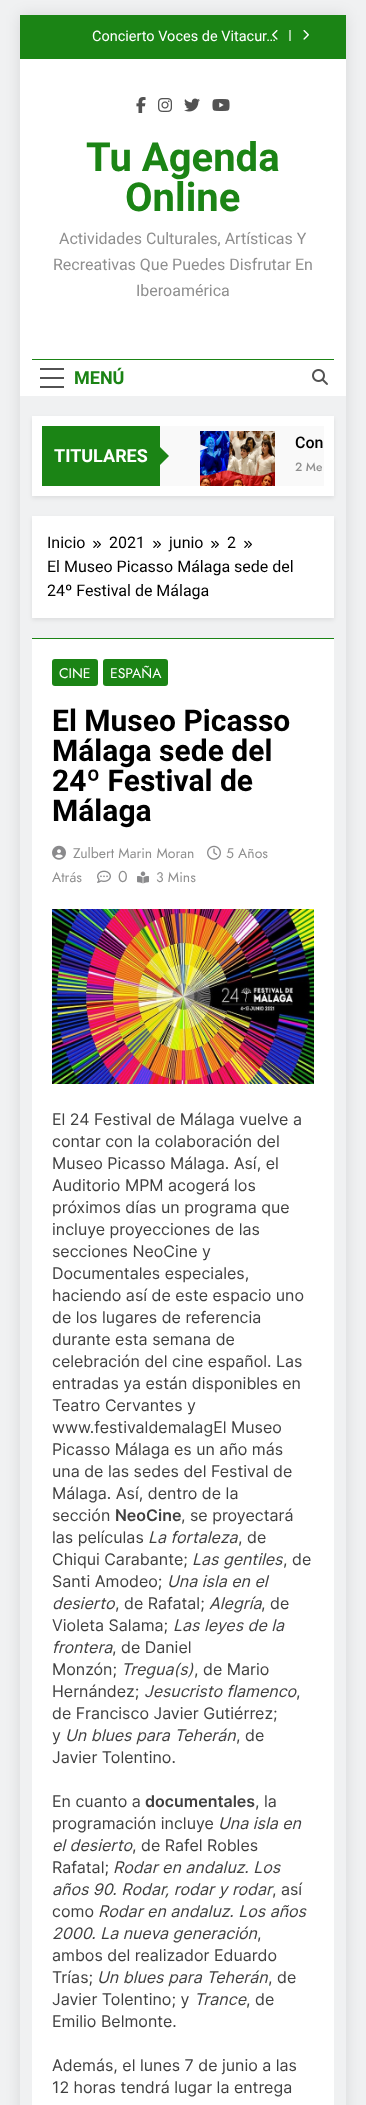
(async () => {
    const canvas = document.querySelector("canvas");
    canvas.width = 366;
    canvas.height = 2105;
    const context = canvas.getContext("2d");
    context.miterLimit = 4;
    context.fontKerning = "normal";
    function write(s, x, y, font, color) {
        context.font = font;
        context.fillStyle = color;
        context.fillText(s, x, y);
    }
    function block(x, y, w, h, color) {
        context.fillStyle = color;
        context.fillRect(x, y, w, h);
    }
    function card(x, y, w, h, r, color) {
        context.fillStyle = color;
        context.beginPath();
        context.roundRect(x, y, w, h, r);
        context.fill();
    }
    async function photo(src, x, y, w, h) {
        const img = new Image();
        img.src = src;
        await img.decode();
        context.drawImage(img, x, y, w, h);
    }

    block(0, 0, 366, 2105, "rgb(240, 241, 242)");
    context.save();
    context.beginPath();
    context.moveTo(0, 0);
    context.lineTo(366, 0);
    context.lineTo(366, 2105);
    context.lineTo(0, 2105);
    context.closePath();
    context.moveTo(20, 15);
    context.lineTo(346, 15);
    context.lineTo(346, 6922);
    context.lineTo(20, 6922);
    context.closePath();
    context.clip("evenodd");
    context.fillStyle = "rgba(0, 0, 0, 0.1)";
    context.filter = "blur(7.5px)";
    context.beginPath();
    context.rect(20, 15, 326, 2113);
    context.fill();
    context.filter = "none";
    context.restore();
    block(20, 15, 326, 44, "rgb(27, 132, 21)");
    await photo("media/1.png", 272, 30, 6, 10);
    write("Concierto Voces de Vitacur…", 92, 41, "14.5px Roboto", "rgb(255, 255, 255)");
    block(289, 30, 2, 11, "rgb(164, 206, 161)");
    await photo("media/2.png", 303, 30, 6, 10);
    block(20, 59, 326, 337, "rgb(255, 255, 255)");
    await photo("media/3.png", 136, 97, 10, 16);
    await photo("media/4.png", 158, 98, 14, 14);
    await photo("media/5.png", 184, 98, 16, 14);
    await photo("media/6.png", 212, 99, 18, 12);
    write("Tu Agenda", 86, 171, "bold 40px Roboto", "rgb(27, 132, 21)");
    write("Online", 125, 211, "bold 40px Roboto", "rgb(27, 132, 21)");
    write("Actividades Culturales, Artísticas Y", 59, 244, "16px Roboto", "rgb(143, 143, 143)");
    write("Recreativas Que Puedes Disfrutar En", 53, 270, "16px Roboto", "rgb(143, 143, 143)");
    write("Iberoamérica", 136, 296, "16px Roboto", "rgb(143, 143, 143)");
    block(32, 359, 302, 1, "rgb(27, 132, 21)");
    block(40, 368, 24, 2, "rgb(82, 82, 82)");
    block(40, 377, 24, 2, "rgb(82, 82, 82)");
    block(40, 386, 24, 2, "rgb(82, 82, 82)");
    write("MENÚ", 74, 384, "bold 18px Roboto", "rgb(27, 132, 21)");
    await photo("media/7.png", 312, 369, 16, 16);
    context.fillStyle = "rgba(0, 0, 0, 0.08)";
    context.filter = "blur(2px)";
    context.beginPath();
    context.rect(32, 418, 302, 80);
    context.fill();
    context.filter = "none";
    block(32, 416, 302, 80, "rgb(255, 255, 255)");
    block(42, 426, 118, 60, "rgb(27, 132, 21)");
    write("TITULARES", 54, 462, "bold 18px Roboto", "rgb(255, 255, 255)");
    block(160, 426, 164, 60, "rgb(249, 249, 249)");
    context.fillStyle = "rgb(27, 132, 21)";
    context.beginPath();
    context.moveTo(159, 466);
    context.lineTo(159, 446);
    context.lineTo(169, 456);
    context.closePath();
    context.fill();
    await photo("media/8.png", 200, 431, 75, 55);
    write("Con", 295, 448, "500 16px Roboto", "rgb(0, 0, 0)");
    write("2 Me", 295, 471, "500 12px Jost", "rgb(143, 143, 143)");
    context.fillStyle = "rgba(0, 0, 0, 0.08)";
    context.filter = "blur(2px)";
    context.beginPath();
    context.rect(32, 518, 302, 102);
    context.fill();
    context.filter = "none";
    block(32, 516, 302, 102, "rgb(255, 255, 255)");
    write("Inicio", 47, 548, "16px Roboto", "rgb(0, 0, 0)");
    await photo("media/9.png", 93, 540, 8, 8);
    write("2021", 109, 548, "16px Roboto", "rgb(0, 0, 0)");
    await photo("media/9.png", 153, 540, 8, 8);
    write("junio", 169, 548, "16px Roboto", "rgb(0, 0, 0)");
    await photo("media/9.png", 211, 540, 8, 8);
    write("2", 227, 548, "16px Roboto", "rgb(0, 0, 0)");
    await photo("media/9.png", 244, 540, 8, 8);
    write("El Museo Picasso Málaga sede del", 47, 572, "16px Roboto", "rgb(0, 0, 0)");
    write("24º Festival de Málaga", 47, 596, "16px Roboto", "rgb(0, 0, 0)");
    block(32, 639, 302, 1466, "rgb(255, 255, 255)");
    block(32, 638, 302, 1, "rgb(27, 132, 21)");
    card(52, 659, 46, 27, 3, "rgb(27, 132, 21)");
    write("CINE", 59, 678, "14px Jost", "rgb(255, 255, 255)");
    card(103, 659, 65, 27, 3, "rgb(27, 132, 21)");
    write("ESPAÑA", 110, 678, "14px Jost", "rgb(255, 255, 255)");
    write("El Museo Picasso", 52, 731, "bold 30px Roboto", "rgb(0, 0, 0)");
    write("Málaga sede del", 52, 761, "bold 30px Roboto", "rgb(0, 0, 0)");
    write("24º Festival de", 52, 791, "bold 30px Roboto", "rgb(0, 0, 0)");
    write("Málaga", 52, 821, "bold 30px Roboto", "rgb(0, 0, 0)");
    await photo("media/10.png", 52, 845, 14, 15);
    write("Zulbert Marin Moran", 73, 858, "14px Jost", "rgb(143, 143, 143)");
    await photo("media/11.png", 207, 845, 14, 15);
    write("5 Años", 226, 858, "14px Jost", "rgb(143, 143, 143)");
    write("Atrás", 52, 882, "14px Jost", "rgb(143, 143, 143)");
    await photo("media/12.png", 97, 870, 14, 13);
    write("0", 118, 882, "16px Jost", "rgb(143, 143, 143)");
    await photo("media/13.png", 137, 871, 12, 13);
    write("3 Mins", 156, 882, "14px Jost", "rgb(143, 143, 143)");
    await photo("media/14.png", 52, 909, 262, 175);
    write("El 24 Festival de Málaga vuelve a", 52, 1125, "16px Inter", "rgb(64, 64, 64)");
    write("contar con la colaboración del", 52, 1147, "16px Inter", "rgb(64, 64, 64)");
    write("Museo Picasso Málaga. Así, el", 52, 1169, "16px Inter", "rgb(64, 64, 64)");
    write("Auditorio MPM acogerá los", 52, 1191, "16px Inter", "rgb(64, 64, 64)");
    write("próximos días un programa que", 52, 1213, "16px Inter", "rgb(64, 64, 64)");
    write("incluye proyecciones de las", 52, 1235, "16px Inter", "rgb(64, 64, 64)");
    write("secciones NeoCine y", 52, 1257, "16px Inter", "rgb(64, 64, 64)");
    write("Documentales especiales,", 52, 1279, "16px Inter", "rgb(64, 64, 64)");
    write("haciendo así de este espacio uno", 52, 1301, "16px Inter", "rgb(64, 64, 64)");
    write("de los lugares de referencia", 52, 1323, "16px Inter", "rgb(64, 64, 64)");
    write("durante esta semana de", 52, 1345, "16px Inter", "rgb(64, 64, 64)");
    write("celebración del cine español. Las", 52, 1367, "16px Inter", "rgb(64, 64, 64)");
    write("entradas ya están disponibles en", 52, 1389, "16px Inter", "rgb(64, 64, 64)");
    write("Teatro Cervantes y", 52, 1411, "16px Inter", "rgb(64, 64, 64)");
    write("www.festivaldemalagEl Museo", 52, 1433, "16px Inter", "rgb(64, 64, 64)");
    write("Picasso Málaga es un año más", 52, 1455, "16px Inter", "rgb(64, 64, 64)");
    write("una de las sedes del Festival de", 52, 1477, "16px Inter", "rgb(64, 64, 64)");
    write("Málaga. Así, dentro de la", 52, 1499, "16px Inter", "rgb(64, 64, 64)");
    write("sección", 52, 1521, "16px Inter", "rgb(64, 64, 64)");
    write("NeoCine", 115, 1521, "600 16px Inter", "rgb(64, 64, 64)");
    write(", se proyectará", 181, 1521, "16px Inter", "rgb(64, 64, 64)");
    write("las películas", 52, 1543, "16px Inter", "rgb(64, 64, 64)");
    write("La fortaleza", 148, 1543, "italic 16px Inter", "rgb(64, 64, 64)");
    write(", de", 238, 1543, "16px Inter", "rgb(64, 64, 64)");
    write("Chiqui Carabante;", 52, 1565, "16px Inter", "rgb(64, 64, 64)");
    write("Las gentiles", 192, 1565, "italic 16px Inter", "rgb(64, 64, 64)");
    write(", de", 283, 1565, "16px Inter", "rgb(64, 64, 64)");
    write("Santi Amodeo;", 52, 1587, "16px Inter", "rgb(64, 64, 64)");
    write("Una isla en el", 167, 1587, "italic 16px Inter", "rgb(64, 64, 64)");
    write("desierto", 52, 1609, "italic 16px Inter", "rgb(64, 64, 64)");
    write(", de Rafatal;", 115, 1609, "16px Inter", "rgb(64, 64, 64)");
    write("Alegría", 209, 1609, "italic 16px Inter", "rgb(64, 64, 64)");
    write(", de", 261, 1609, "16px Inter", "rgb(64, 64, 64)");
    write("Violeta Salama;", 52, 1631, "16px Inter", "rgb(64, 64, 64)");
    write("Las leyes de la", 173, 1631, "italic 16px Inter", "rgb(64, 64, 64)");
    write("frontera", 52, 1653, "italic 16px Inter", "rgb(64, 64, 64)");
    write(", de Daniel", 112, 1653, "16px Inter", "rgb(64, 64, 64)");
    write("Monzón;", 52, 1675, "16px Inter", "rgb(64, 64, 64)");
    write("Tregua(s)", 121, 1675, "italic 16px Inter", "rgb(64, 64, 64)");
    write(", de Mario", 194, 1675, "16px Inter", "rgb(64, 64, 64)");
    write("Hernández;", 52, 1697, "16px Inter", "rgb(64, 64, 64)");
    write("Jesucristo flamenco", 144, 1697, "italic 16px Inter", "rgb(64, 64, 64)");
    write(",", 296, 1697, "16px Inter", "rgb(64, 64, 64)");
    write("de Francisco Javier Gutiérrez;", 52, 1719, "16px Inter", "rgb(64, 64, 64)");
    write("y", 52, 1741, "16px Inter", "rgb(64, 64, 64)");
    write("Un blues para Teherán", 65, 1741, "italic 16px Inter", "rgb(64, 64, 64)");
    write(", de", 236, 1741, "16px Inter", "rgb(64, 64, 64)");
    write("Javier Tolentino.", 52, 1763, "16px Inter", "rgb(64, 64, 64)");
    write("En cuanto a", 52, 1807, "16px Inter", "rgb(64, 64, 64)");
    write("documentales", 145, 1807, "600 16px Inter", "rgb(64, 64, 64)");
    write(", la", 255, 1807, "16px Inter", "rgb(64, 64, 64)");
    write("programación incluye", 52, 1829, "16px Inter", "rgb(64, 64, 64)");
    write("Una isla en", 218, 1829, "italic 16px Inter", "rgb(64, 64, 64)");
    write("el desierto", 52, 1851, "italic 16px Inter", "rgb(64, 64, 64)");
    write(", de Rafel Robles", 132, 1851, "16px Inter", "rgb(64, 64, 64)");
    write("Rafatal;", 52, 1873, "16px Inter", "rgb(64, 64, 64)");
    write("Rodar en andaluz. Los", 113, 1873, "italic 16px Inter", "rgb(64, 64, 64)");
    write("años 90. Rodar, rodar y rodar", 52, 1895, "italic 16px Inter", "rgb(64, 64, 64)");
    write(", así", 272, 1895, "16px Inter", "rgb(64, 64, 64)");
    write("como", 52, 1917, "16px Inter", "rgb(64, 64, 64)");
    write("Rodar en andaluz. Los años", 98, 1917, "italic 16px Inter", "rgb(64, 64, 64)");
    write("2000. La nueva generación", 52, 1939, "italic 16px Inter", "rgb(64, 64, 64)");
    write(",", 257, 1939, "16px Inter", "rgb(64, 64, 64)");
    write("ambos del realizador Eduardo", 52, 1961, "16px Inter", "rgb(64, 64, 64)");
    write("Trías;", 52, 1983, "16px Inter", "rgb(64, 64, 64)");
    write("Un blues para Teherán", 97, 1983, "italic 16px Inter", "rgb(64, 64, 64)");
    write(", de", 268, 1983, "16px Inter", "rgb(64, 64, 64)");
    write("Javier Tolentino; y", 52, 2005, "16px Inter", "rgb(64, 64, 64)");
    write("Trance", 194, 2005, "italic 16px Inter", "rgb(64, 64, 64)");
    write(", de", 246, 2005, "16px Inter", "rgb(64, 64, 64)");
    write("Emilio Belmonte.", 52, 2027, "16px Inter", "rgb(64, 64, 64)");
    write("Además, el lunes 7 de junio a las", 52, 2071, "16px Inter", "rgb(64, 64, 64)");
    write("12 horas tendrá lugar la entrega", 52, 2093, "16px Inter", "rgb(64, 64, 64)");
})();
